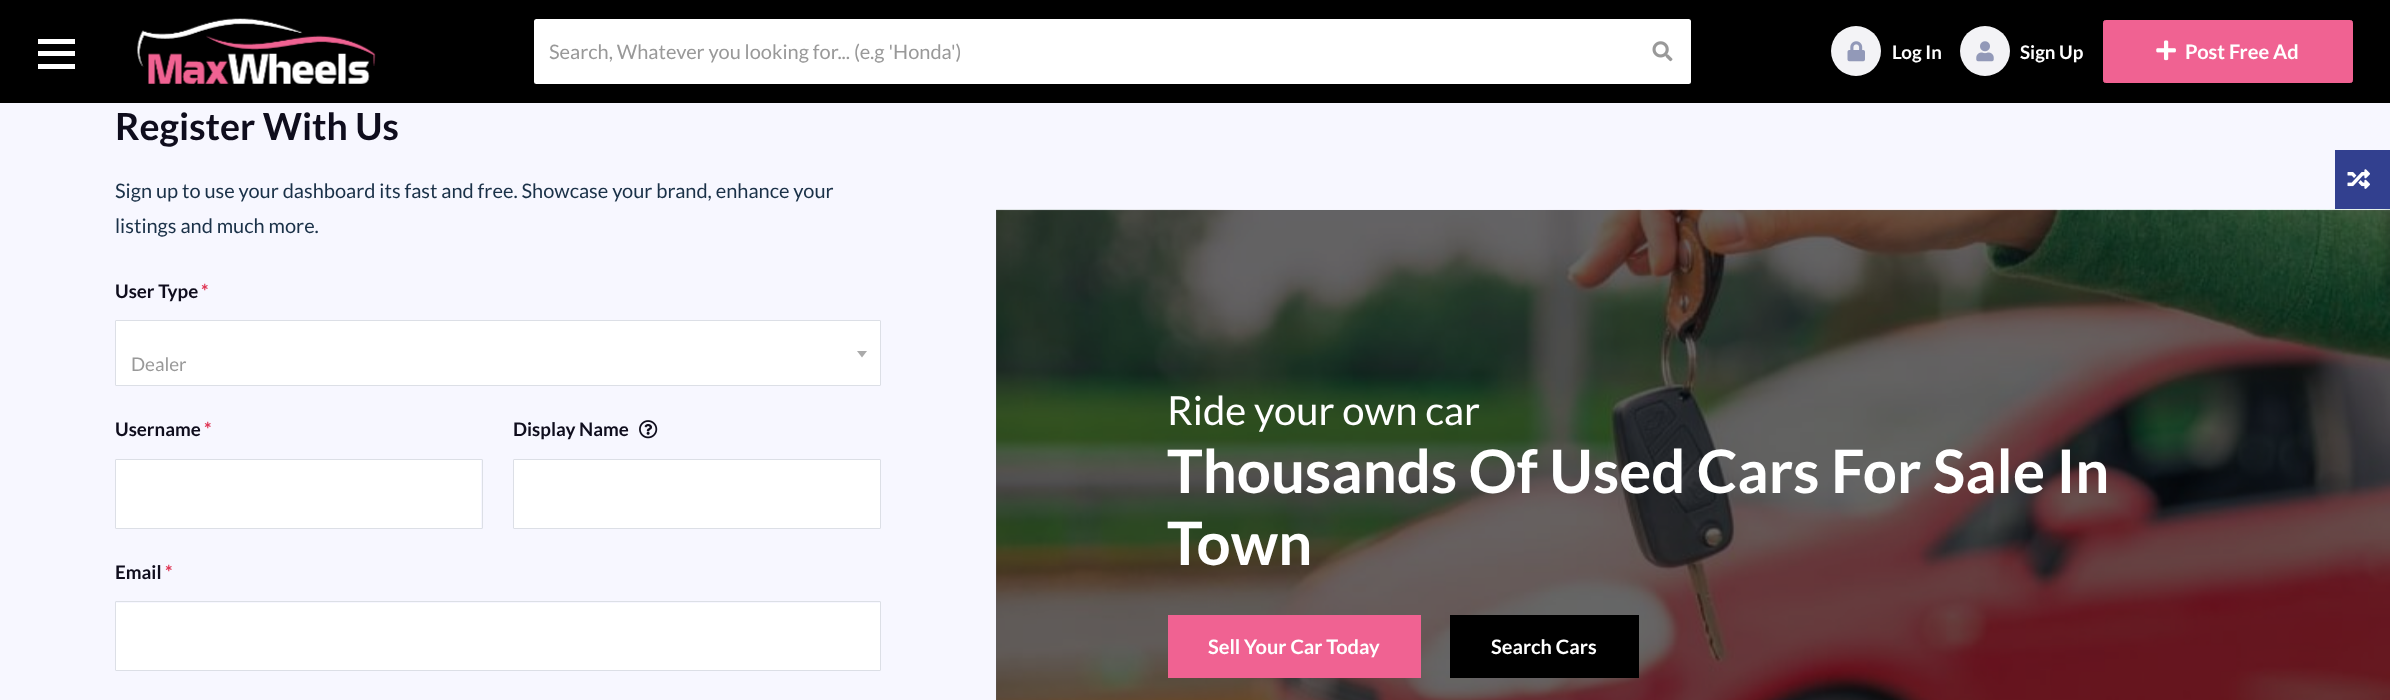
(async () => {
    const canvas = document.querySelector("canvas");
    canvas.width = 2390;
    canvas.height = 700;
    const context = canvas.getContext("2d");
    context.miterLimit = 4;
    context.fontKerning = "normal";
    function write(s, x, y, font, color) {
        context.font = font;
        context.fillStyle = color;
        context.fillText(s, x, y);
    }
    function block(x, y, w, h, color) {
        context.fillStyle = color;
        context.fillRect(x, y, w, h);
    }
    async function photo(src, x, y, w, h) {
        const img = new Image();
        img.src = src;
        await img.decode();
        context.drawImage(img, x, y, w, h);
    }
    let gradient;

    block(0, 0, 2390, 700, "rgb(247, 247, 255)");
    block(0, 0, 2390, 103, "rgb(0, 0, 0)");
    block(38, 51, 37, 5, "rgb(255, 255, 255)");
    block(38, 39, 37, 5, "rgb(255, 255, 255)");
    block(38, 64, 37, 5, "rgb(255, 255, 255)");
    await photo("media/1.png", 137, 18, 239, 66);
    context.beginPath();
    context.roundRect(1634, 19, 57, 65, [0, 2.5, 2.5, 0]);
    context.fill();
    context.beginPath();
    context.roundRect(534, 19, 1101, 65, [2.5, 0, 0, 2.5]);
    context.fill();
    write("Search, Whatever you looking for... (e.g 'Honda')", 549, 59, "20px Lato", "rgb(153, 153, 153)");
    await photo("media/2.png", 1652, 41, 21, 21);
    context.fillStyle = "rgb(243, 243, 246)";
    context.beginPath();
    context.arc(1856, 51, 25, 0, Math.PI * 2);
    context.fill();
    await photo("media/3.png", 1847, 41, 18, 21);
    write("Log In", 1892, 59, "bold 18.75px Lato", "rgb(255, 255, 255)");
    context.fillStyle = "rgb(243, 243, 246)";
    context.beginPath();
    context.arc(1985, 51, 25, 0, Math.PI * 2);
    context.fill();
    await photo("media/4.png", 1976, 41, 18, 21);
    write("Sign Up", 2020, 59, "bold 18.75px Lato", "rgb(255, 255, 255)");
    context.fillStyle = "rgb(240, 98, 146)";
    context.beginPath();
    context.roundRect(2103.5, 20.5, 249, 62, 2);
    context.fill();
    context.strokeStyle = "rgb(240, 98, 146)";
    context.stroke();
    await photo("media/5.png", 2156, 40, 20, 21);
    write("Post Free Ad", 2185, 59, "bold 20px Lato", "rgb(255, 255, 255)");
    block(996, 210, 1394, 490, "rgb(99, 99, 102)");
    write("Register With Us", 115, 140, "bold 37.5px Lato", "rgb(15, 13, 29)");
    write("Sign up to use your dashboard its fast and free. Showcase your brand, enhance your", 115, 198, "20px Lato", "rgb(26, 49, 72)");
    write("listings and much more.", 115, 233, "20px Lato", "rgb(26, 49, 72)");
    write("User Type", 115, 298, "bold 18.75px Lato", "rgb(15, 13, 29)");
    write("*", 201, 298, "bold 18.75px Lato", "rgb(223, 53, 84)");
    context.fillStyle = "rgb(255, 255, 255)";
    context.beginPath();
    context.roundRect(115.5, 320.5, 765, 65, 0.5);
    context.fill();
    context.strokeStyle = "rgb(220, 223, 230)";
    context.stroke();
    context.fillStyle = "rgb(170, 170, 170)";
    context.beginPath();
    context.moveTo(857, 351);
    context.lineTo(867, 351);
    context.lineTo(862, 357.5);
    context.closePath();
    context.fill();
    write("Dealer", 131, 371, "18.75px Lato", "rgb(153, 153, 153)");
    write("Username", 115, 436, "bold 18.75px Lato", "rgb(15, 13, 29)");
    write("*", 204, 436, "bold 18.75px Lato", "rgb(223, 53, 84)");
    block(116, 460, 365, 68, "rgb(255, 255, 255)");
    context.beginPath();
    context.roundRect(115.5, 459.5, 367, 69, 0.5);
    context.stroke();
    write("Display Name", 513, 436, "bold 18.75px Lato", "rgb(15, 13, 29)");
    await photo("media/6.png", 639, 420, 19, 19);
    context.fillStyle = "rgb(255, 255, 255)";
    context.beginPath();
    context.roundRect(513.5, 459.5, 367, 69, 0.5);
    context.fill();
    context.stroke();
    write("Email", 115, 579, "bold 18.75px Lato", "rgb(15, 13, 29)");
    write("*", 165, 579, "bold 18.75px Lato", "rgb(223, 53, 84)");
    block(116, 603, 764, 67, "rgb(255, 255, 255)");
    context.beginPath();
    context.roundRect(115.5, 601.5, 765, 69, 0.5);
    context.stroke();
    await photo("media/7.png", 996, 209, 1394, 491);
    write("Ride your own car", 1167, 425, "40px Lato", "rgb(255, 255, 255)");
    write("Thousands Of Used Cars For Sale In", 1167, 493, "bold 60px Lato", "rgb(255, 255, 255)");
    write("Town", 1167, 565, "bold 60px Lato", "rgb(255, 255, 255)");
    block(1168, 615, 253, 63, "rgb(240, 98, 146)");
    write("Sell Your Car Today", 1208, 654, "bold 20px Lato", "rgb(255, 255, 255)");
    block(1450, 615, 189, 63, "rgb(0, 0, 0)");
    write("Search Cars", 1491, 654, "bold 20px Lato", "rgb(255, 255, 255)");
    context.fillStyle = "rgba(0, 0, 0, 0.16)";
    context.filter = "blur(6px)";
    context.beginPath();
    context.rect(2389, 208, 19, 87);
    context.fill();
    context.filter = "none";
    context.filter = "blur(6px)";
    context.beginPath();
    context.rect(2389, 208, 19, 87);
    context.fill();
    context.filter = "none";
    gradient = context.createLinearGradient(2335, 179, 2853, 179);
    gradient.addColorStop(0.7, "rgb(50, 64, 143)");
    gradient.addColorStop(1, "rgb(118, 132, 207)");
    context.fillStyle = gradient;
    context.fillRect(2335, 150, 55, 59);
    await photo("media/8.png", 2347, 169, 23, 20);
})();
